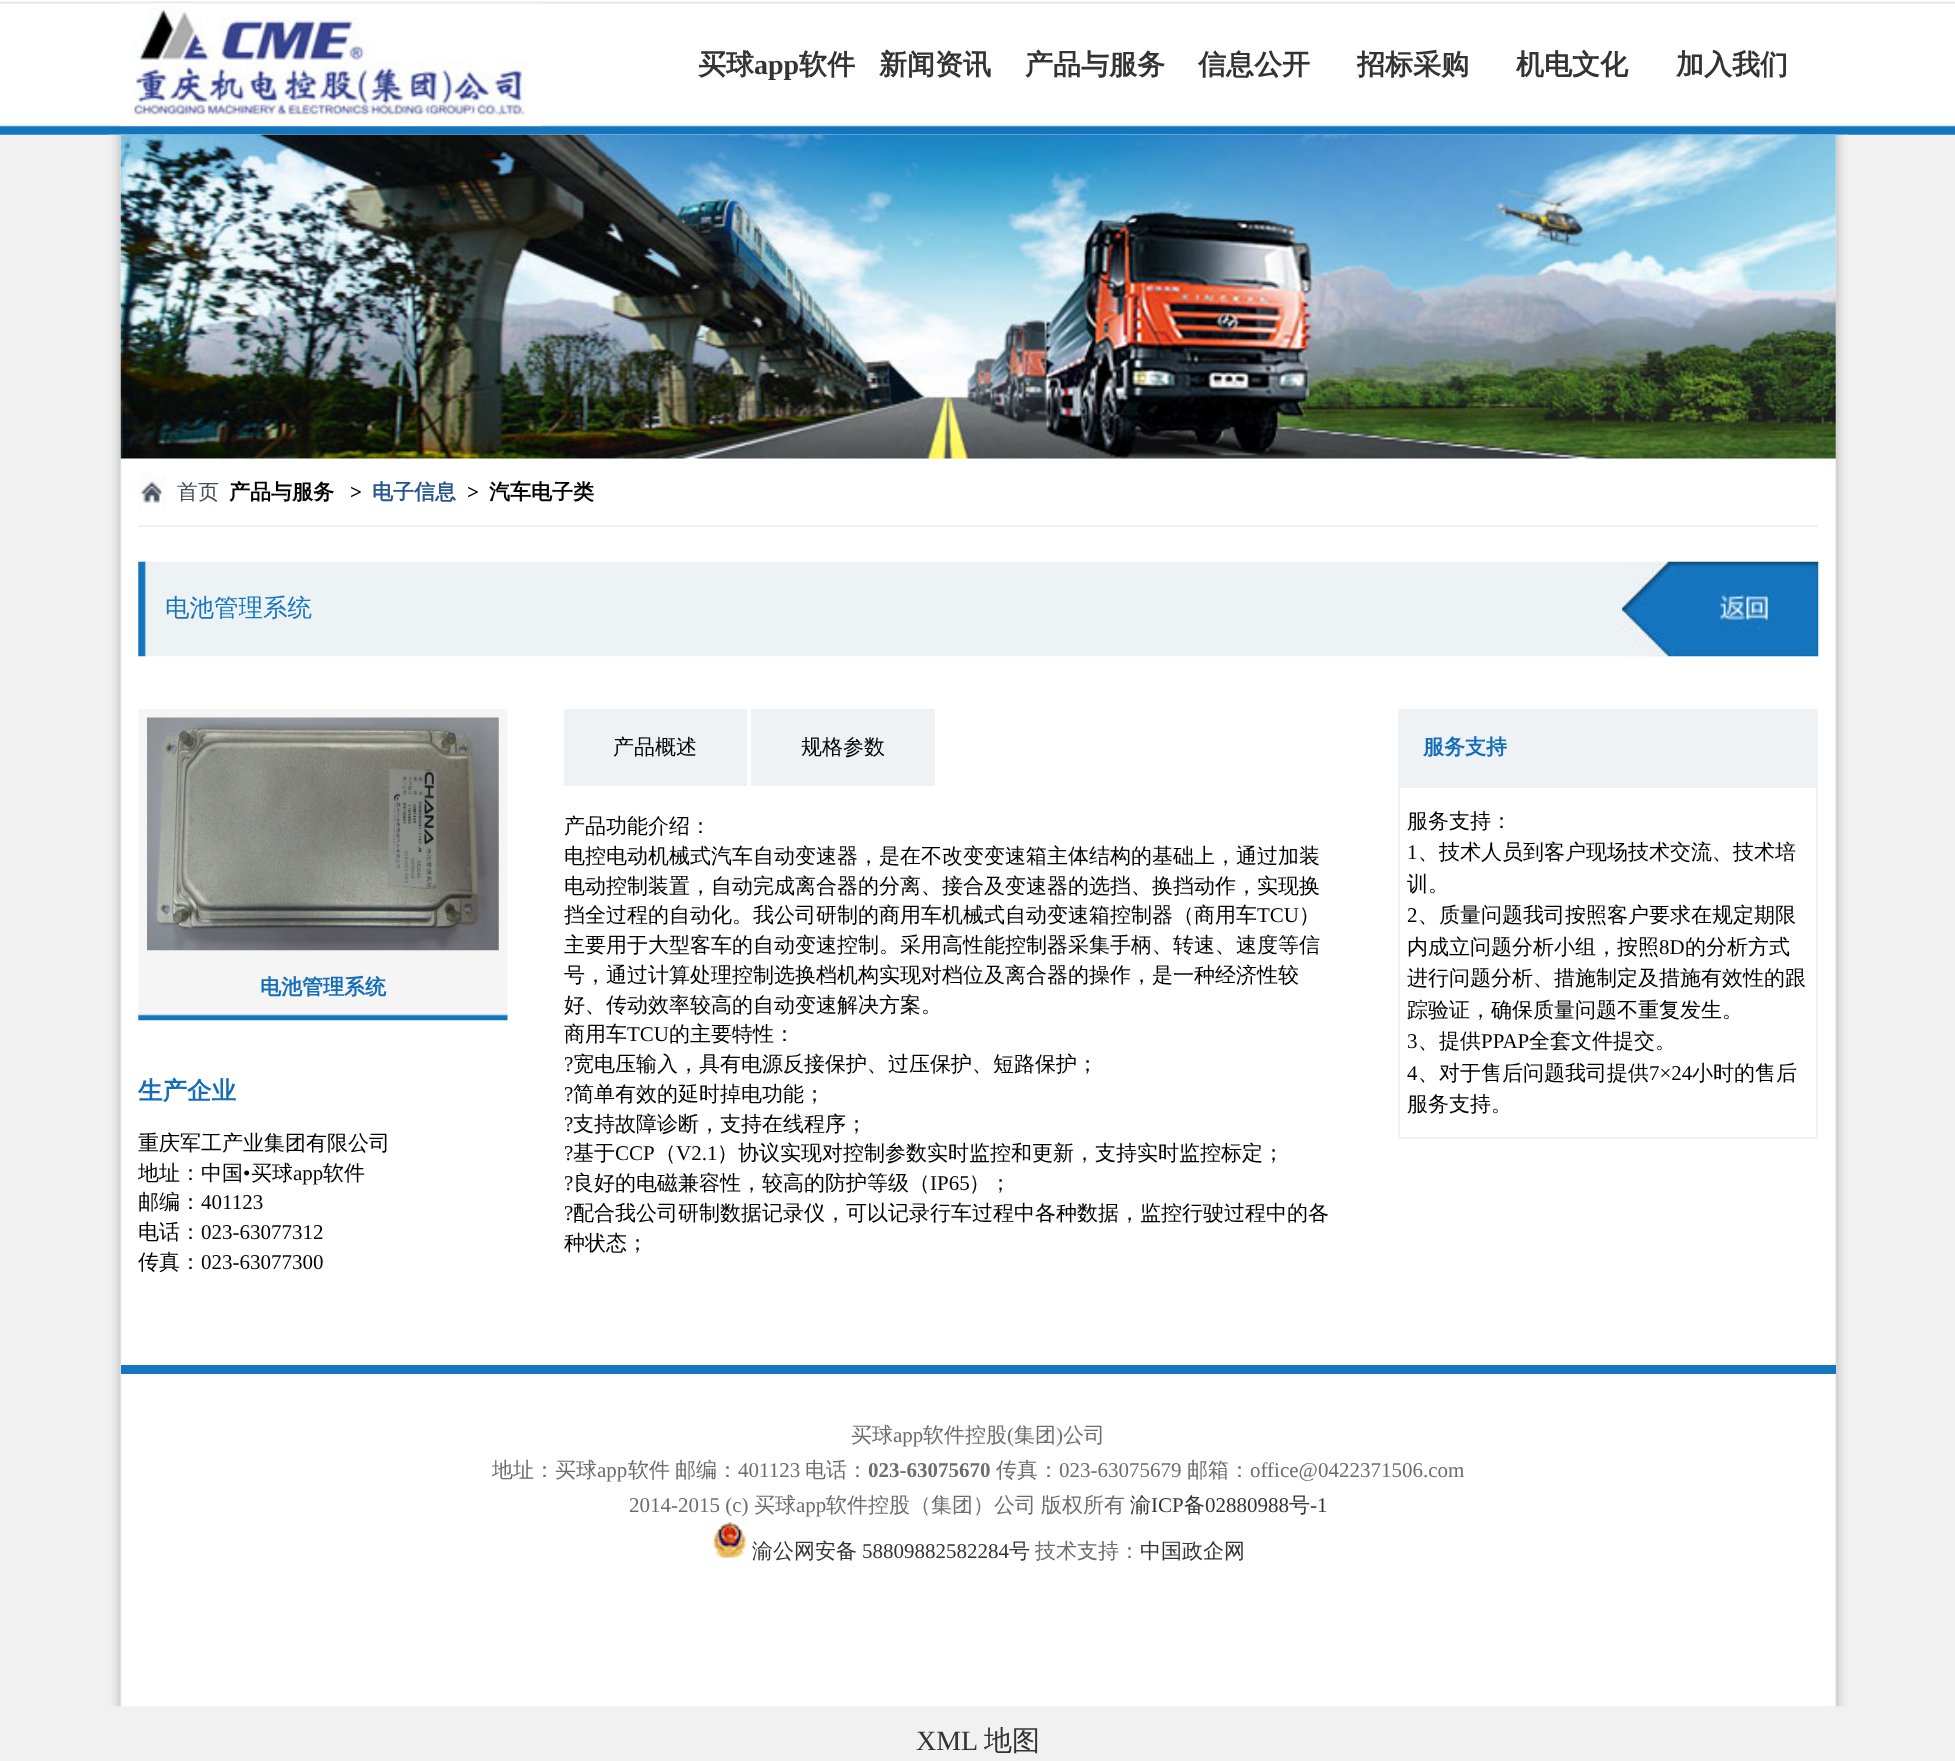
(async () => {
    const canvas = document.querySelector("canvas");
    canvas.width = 1955;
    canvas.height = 1761;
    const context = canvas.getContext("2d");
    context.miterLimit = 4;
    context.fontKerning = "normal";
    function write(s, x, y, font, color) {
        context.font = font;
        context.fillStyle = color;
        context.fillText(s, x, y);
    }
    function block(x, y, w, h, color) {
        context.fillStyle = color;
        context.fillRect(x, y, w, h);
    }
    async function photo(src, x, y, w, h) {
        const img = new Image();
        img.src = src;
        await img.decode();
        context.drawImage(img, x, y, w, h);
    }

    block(0, 0, 1955, 1761, "rgb(241, 241, 241)");
    await photo("media/1.png", 0, 0, 1955, 135);
    await photo("media/2.png", 120, 3, 421, 123);
    write("买球", 698, 74, "bold 28px WenQuanYi Zen Hei", "rgb(51, 51, 51)");
    write("app", 754, 74, "bold 28px Liberation Serif", "rgb(51, 51, 51)");
    write("软件", 799, 74, "bold 28px WenQuanYi Zen Hei", "rgb(51, 51, 51)");
    write("新闻资讯", 879, 74, "bold 28px WenQuanYi Zen Hei", "rgb(51, 51, 51)");
    write("产品与服务", 1025, 74, "bold 28px WenQuanYi Zen Hei", "rgb(51, 51, 51)");
    write("信息公开", 1198, 74, "bold 28px WenQuanYi Zen Hei", "rgb(51, 51, 51)");
    write("招标采购", 1357, 74, "bold 28px WenQuanYi Zen Hei", "rgb(51, 51, 51)");
    write("机电文化", 1516, 74, "bold 28px WenQuanYi Zen Hei", "rgb(51, 51, 51)");
    write("加入我们", 1676, 74, "bold 28px WenQuanYi Zen Hei", "rgb(51, 51, 51)");
    await photo("media/3.png", 108, 134, 1740, 1573);
    await photo("media/4.png", 120, 134, 1716, 325);
    await photo("media/5.png", 138, 473, 29, 40);
    block(138, 525, 1680, 2, "rgb(241, 241, 241)");
    write("首页", 177, 499, "500 21px WenQuanYi Zen Hei", "rgb(66, 76, 88)");
    write("产品与服务", 229, 499, "bold 21px WenQuanYi Zen Hei", "rgb(0, 0, 0)");
    write(">", 350, 499, "bold 21px Liberation Serif", "rgb(0, 0, 0)");
    write("电子信息", 372, 499, "bold 21px WenQuanYi Zen Hei", "rgb(39, 86, 144)");
    write(">", 467, 499, "bold 21px Liberation Serif", "rgb(0, 0, 0)");
    write("汽车电子类", 489, 499, "bold 21px WenQuanYi Zen Hei", "rgb(0, 0, 0)");
    await photo("media/6.png", 138, 561, 1681, 96);
    write("电池管理系统", 165, 616, "500 24.5px WenQuanYi Zen Hei", "rgb(21, 117, 190)");
    await photo("media/7.png", 1622, 561, 197, 96);
    await photo("media/8.png", 138, 709, 370, 312);
    await photo("media/9.png", 147, 717, 352, 234);
    write("电池管理系统", 260, 994, "bold 21px WenQuanYi Zen Hei", "rgb(20, 109, 185)");
    write("生产企业", 138, 1099, "bold 24.5px WenQuanYi Zen Hei", "rgb(20, 109, 185)");
    write("重庆军工产业集团有限公司", 138, 1150, "500 21px WenQuanYi Zen Hei", "rgb(0, 0, 0)");
    write("地址：中国", 138, 1180, "500 21px WenQuanYi Zen Hei", "rgb(0, 0, 0)");
    write("•", 243, 1180, "21px Liberation Serif", "rgb(0, 0, 0)");
    write("买球", 251, 1180, "500 21px WenQuanYi Zen Hei", "rgb(0, 0, 0)");
    write("app", 293, 1180, "21px Liberation Serif", "rgb(0, 0, 0)");
    write("软件", 323, 1180, "500 21px WenQuanYi Zen Hei", "rgb(0, 0, 0)");
    write("邮编：", 138, 1209, "500 21px WenQuanYi Zen Hei", "rgb(0, 0, 0)");
    write("401123", 201, 1209, "21px Liberation Serif", "rgb(0, 0, 0)");
    write("电话：", 138, 1239, "500 21px WenQuanYi Zen Hei", "rgb(0, 0, 0)");
    write("023-63077312", 201, 1239, "21px Liberation Serif", "rgb(0, 0, 0)");
    write("传真：", 138, 1269, "500 21px WenQuanYi Zen Hei", "rgb(0, 0, 0)");
    write("023-63077300", 201, 1269, "21px Liberation Serif", "rgb(0, 0, 0)");
    block(564, 709, 183, 77, "rgb(238, 242, 245)");
    write("产品概述", 613, 754, "500 21px WenQuanYi Zen Hei", "rgb(0, 0, 0)");
    block(751, 709, 184, 77, "rgb(238, 242, 245)");
    write("规格参数", 801, 754, "500 21px WenQuanYi Zen Hei", "rgb(0, 0, 0)");
    write("产品功能介绍：", 564, 833, "500 21px WenQuanYi Zen Hei", "rgb(0, 0, 0)");
    write("电控电动机械式汽车自动变速器，是在不改变变速箱主体结构的基础上，通过加装", 564, 863, "500 21px WenQuanYi Zen Hei", "rgb(0, 0, 0)");
    write("电动控制装置，自动完成离合器的分离、接合及变速器的选挡、换挡动作，实现换", 564, 893, "500 21px WenQuanYi Zen Hei", "rgb(0, 0, 0)");
    write("挡全过程的自动化。我公司研制的商用车机械式自动变速箱控制器（商用车", 564, 922, "500 21px WenQuanYi Zen Hei", "rgb(0, 0, 0)");
    write("TCU", 1257, 922, "21px Liberation Serif", "rgb(0, 0, 0)");
    write("）", 1299, 922, "500 21px WenQuanYi Zen Hei", "rgb(0, 0, 0)");
    write("主要用于大型客车的自动变速控制。采用高性能控制器采集手柄、转速、速度等信", 564, 952, "500 21px WenQuanYi Zen Hei", "rgb(0, 0, 0)");
    write("号，通过计算处理控制选换档机构实现对档位及离合器的操作，是一种经济性较", 564, 982, "500 21px WenQuanYi Zen Hei", "rgb(0, 0, 0)");
    write("好、传动效率较高的自动变速解决方案。", 564, 1012, "500 21px WenQuanYi Zen Hei", "rgb(0, 0, 0)");
    write("商用车", 564, 1041, "500 21px WenQuanYi Zen Hei", "rgb(0, 0, 0)");
    write("TCU", 627, 1041, "21px Liberation Serif", "rgb(0, 0, 0)");
    write("的主要特性：", 669, 1041, "500 21px WenQuanYi Zen Hei", "rgb(0, 0, 0)");
    write("?", 564, 1071, "21px Liberation Serif", "rgb(0, 0, 0)");
    write("宽电压输入，具有电源反接保护、过压保护、短路保护；", 573, 1071, "500 21px WenQuanYi Zen Hei", "rgb(0, 0, 0)");
    write("?", 564, 1101, "21px Liberation Serif", "rgb(0, 0, 0)");
    write("简单有效的延时掉电功能；", 573, 1101, "500 21px WenQuanYi Zen Hei", "rgb(0, 0, 0)");
    write("?", 564, 1131, "21px Liberation Serif", "rgb(0, 0, 0)");
    write("支持故障诊断，支持在线程序；", 573, 1131, "500 21px WenQuanYi Zen Hei", "rgb(0, 0, 0)");
    write("?", 564, 1160, "21px Liberation Serif", "rgb(0, 0, 0)");
    write("基于", 573, 1160, "500 21px WenQuanYi Zen Hei", "rgb(0, 0, 0)");
    write("CCP", 615, 1160, "21px Liberation Serif", "rgb(0, 0, 0)");
    write("（", 655, 1160, "500 21px WenQuanYi Zen Hei", "rgb(0, 0, 0)");
    write("V2.1", 676, 1160, "21px Liberation Serif", "rgb(0, 0, 0)");
    write("）协议实现对控制参数实时监控和更新，支持实时监控标定；", 717, 1160, "500 21px WenQuanYi Zen Hei", "rgb(0, 0, 0)");
    write("?", 564, 1190, "21px Liberation Serif", "rgb(0, 0, 0)");
    write("良好的电磁兼容性，较高的防护等级（", 573, 1190, "500 21px WenQuanYi Zen Hei", "rgb(0, 0, 0)");
    write("IP65", 930, 1190, "21px Liberation Serif", "rgb(0, 0, 0)");
    write("）；", 969, 1190, "500 21px WenQuanYi Zen Hei", "rgb(0, 0, 0)");
    write("?", 564, 1220, "21px Liberation Serif", "rgb(0, 0, 0)");
    write("配合我公司研制数据记录仪，可以记录行车过程中各种数据，监控行驶过程中的各", 573, 1220, "500 21px WenQuanYi Zen Hei", "rgb(0, 0, 0)");
    write("种状态；", 564, 1250, "500 21px WenQuanYi Zen Hei", "rgb(0, 0, 0)");
    block(1398, 709, 420, 77, "rgb(238, 242, 245)");
    write("服务支持", 1423, 754, "bold 21px WenQuanYi Zen Hei", "rgb(20, 109, 185)");
    context.strokeStyle = "rgb(238, 242, 245)";
    context.lineWidth = 2;
    context.strokeRect(1399, 787, 418, 351);
    write("服务支持：", 1407, 828, "500 21px WenQuanYi Zen Hei", "rgb(0, 0, 0)");
    write("1", 1407, 859, "21px Liberation Serif", "rgb(0, 0, 0)");
    write("、技术人员到客户现场技术交流、技术培", 1418, 859, "500 21px WenQuanYi Zen Hei", "rgb(0, 0, 0)");
    write("训。", 1407, 891, "500 21px WenQuanYi Zen Hei", "rgb(0, 0, 0)");
    write("2", 1407, 922, "21px Liberation Serif", "rgb(0, 0, 0)");
    write("、质量问题我司按照客户要求在规定期限", 1418, 922, "500 21px WenQuanYi Zen Hei", "rgb(0, 0, 0)");
    write("内成立问题分析小组，按照", 1407, 954, "500 21px WenQuanYi Zen Hei", "rgb(0, 0, 0)");
    write("8D", 1659, 954, "21px Liberation Serif", "rgb(0, 0, 0)");
    write("的分析方式", 1685, 954, "500 21px WenQuanYi Zen Hei", "rgb(0, 0, 0)");
    write("进行问题分析、措施制定及措施有效性的跟", 1407, 985, "500 21px WenQuanYi Zen Hei", "rgb(0, 0, 0)");
    write("踪验证，确保质量问题不重复发生。", 1407, 1017, "500 21px WenQuanYi Zen Hei", "rgb(0, 0, 0)");
    write("3", 1407, 1048, "21px Liberation Serif", "rgb(0, 0, 0)");
    write("、提供", 1418, 1048, "500 21px WenQuanYi Zen Hei", "rgb(0, 0, 0)");
    write("PPAP", 1481, 1048, "21px Liberation Serif", "rgb(0, 0, 0)");
    write("全套文件提交。", 1529, 1048, "500 21px WenQuanYi Zen Hei", "rgb(0, 0, 0)");
    write("4", 1407, 1080, "21px Liberation Serif", "rgb(0, 0, 0)");
    write("、对于售后问题我司提供", 1418, 1080, "500 21px WenQuanYi Zen Hei", "rgb(0, 0, 0)");
    write("7×24", 1649, 1080, "21px Liberation Serif", "rgb(0, 0, 0)");
    write("小时的售后", 1692, 1080, "500 21px WenQuanYi Zen Hei", "rgb(0, 0, 0)");
    write("服务支持。", 1407, 1111, "500 21px WenQuanYi Zen Hei", "rgb(0, 0, 0)");
    block(121, 1365, 1715, 9, "rgb(21, 117, 190)");
    write("买球", 851, 1442, "500 21px WenQuanYi Zen Hei", "rgb(109, 108, 108)");
    write("app", 893, 1442, "21px Liberation Serif", "rgb(109, 108, 108)");
    write("软件控股", 923, 1442, "500 21px WenQuanYi Zen Hei", "rgb(109, 108, 108)");
    write("(", 1007, 1442, "21px Liberation Serif", "rgb(109, 108, 108)");
    write("集团", 1014, 1442, "500 21px WenQuanYi Zen Hei", "rgb(109, 108, 108)");
    write(")", 1056, 1442, "21px Liberation Serif", "rgb(109, 108, 108)");
    write("公司", 1063, 1442, "500 21px WenQuanYi Zen Hei", "rgb(109, 108, 108)");
    write("地址：买球", 492, 1477, "500 21px WenQuanYi Zen Hei", "rgb(109, 108, 108)");
    write("app", 597, 1477, "21px Liberation Serif", "rgb(109, 108, 108)");
    write("软件", 628, 1477, "500 21px WenQuanYi Zen Hei", "rgb(109, 108, 108)");
    write("邮编：", 675, 1477, "500 21px WenQuanYi Zen Hei", "rgb(109, 108, 108)");
    write("401123", 738, 1477, "21px Liberation Serif", "rgb(109, 108, 108)");
    write("电话：", 805, 1477, "500 21px WenQuanYi Zen Hei", "rgb(109, 108, 108)");
    write("023-63075670", 868, 1477, "bold 21px Liberation Serif", "rgb(109, 108, 108)");
    write("传真：", 996, 1477, "500 21px WenQuanYi Zen Hei", "rgb(109, 108, 108)");
    write("023-63075679", 1059, 1477, "21px Liberation Serif", "rgb(109, 108, 108)");
    write("邮箱：", 1187, 1477, "500 21px WenQuanYi Zen Hei", "rgb(109, 108, 108)");
    write("office@0422371506.com", 1250, 1477, "21px Liberation Serif", "rgb(109, 108, 108)");
    write("2014-2015 (c)", 629, 1512, "21px Liberation Serif", "rgb(109, 108, 108)");
    write("买球", 754, 1512, "500 21px WenQuanYi Zen Hei", "rgb(109, 108, 108)");
    write("app", 796, 1512, "21px Liberation Serif", "rgb(109, 108, 108)");
    write("软件控股（集团）公司", 826, 1512, "500 21px WenQuanYi Zen Hei", "rgb(109, 108, 108)");
    write("版权所有", 1041, 1512, "500 21px WenQuanYi Zen Hei", "rgb(109, 108, 108)");
    write("渝", 1130, 1512, "500 21px WenQuanYi Zen Hei", "rgb(51, 51, 51)");
    write("ICP", 1151, 1512, "21px Liberation Serif", "rgb(51, 51, 51)");
    write("备", 1184, 1512, "500 21px WenQuanYi Zen Hei", "rgb(51, 51, 51)");
    write("02880988", 1205, 1512, "21px Liberation Serif", "rgb(51, 51, 51)");
    write("号", 1289, 1512, "500 21px WenQuanYi Zen Hei", "rgb(51, 51, 51)");
    write("-1", 1310, 1512, "21px Liberation Serif", "rgb(51, 51, 51)");
    await photo("media/10.png", 713, 1522, 33, 36);
    write("渝公网安备", 752, 1558, "500 21px WenQuanYi Zen Hei", "rgb(51, 51, 51)");
    write("58809882582284", 862, 1558, "21px Liberation Serif", "rgb(51, 51, 51)");
    write("号", 1009, 1558, "500 21px WenQuanYi Zen Hei", "rgb(51, 51, 51)");
    write("技术支持：", 1035, 1558, "500 21px WenQuanYi Zen Hei", "rgb(109, 108, 108)");
    write("中国政企网", 1140, 1558, "500 21px WenQuanYi Zen Hei", "rgb(51, 51, 51)");
    write("XML", 916, 1750, "28px Liberation Serif", "rgb(51, 51, 51)");
    write("地图", 984, 1750, "500 28px WenQuanYi Zen Hei", "rgb(51, 51, 51)");
})();
